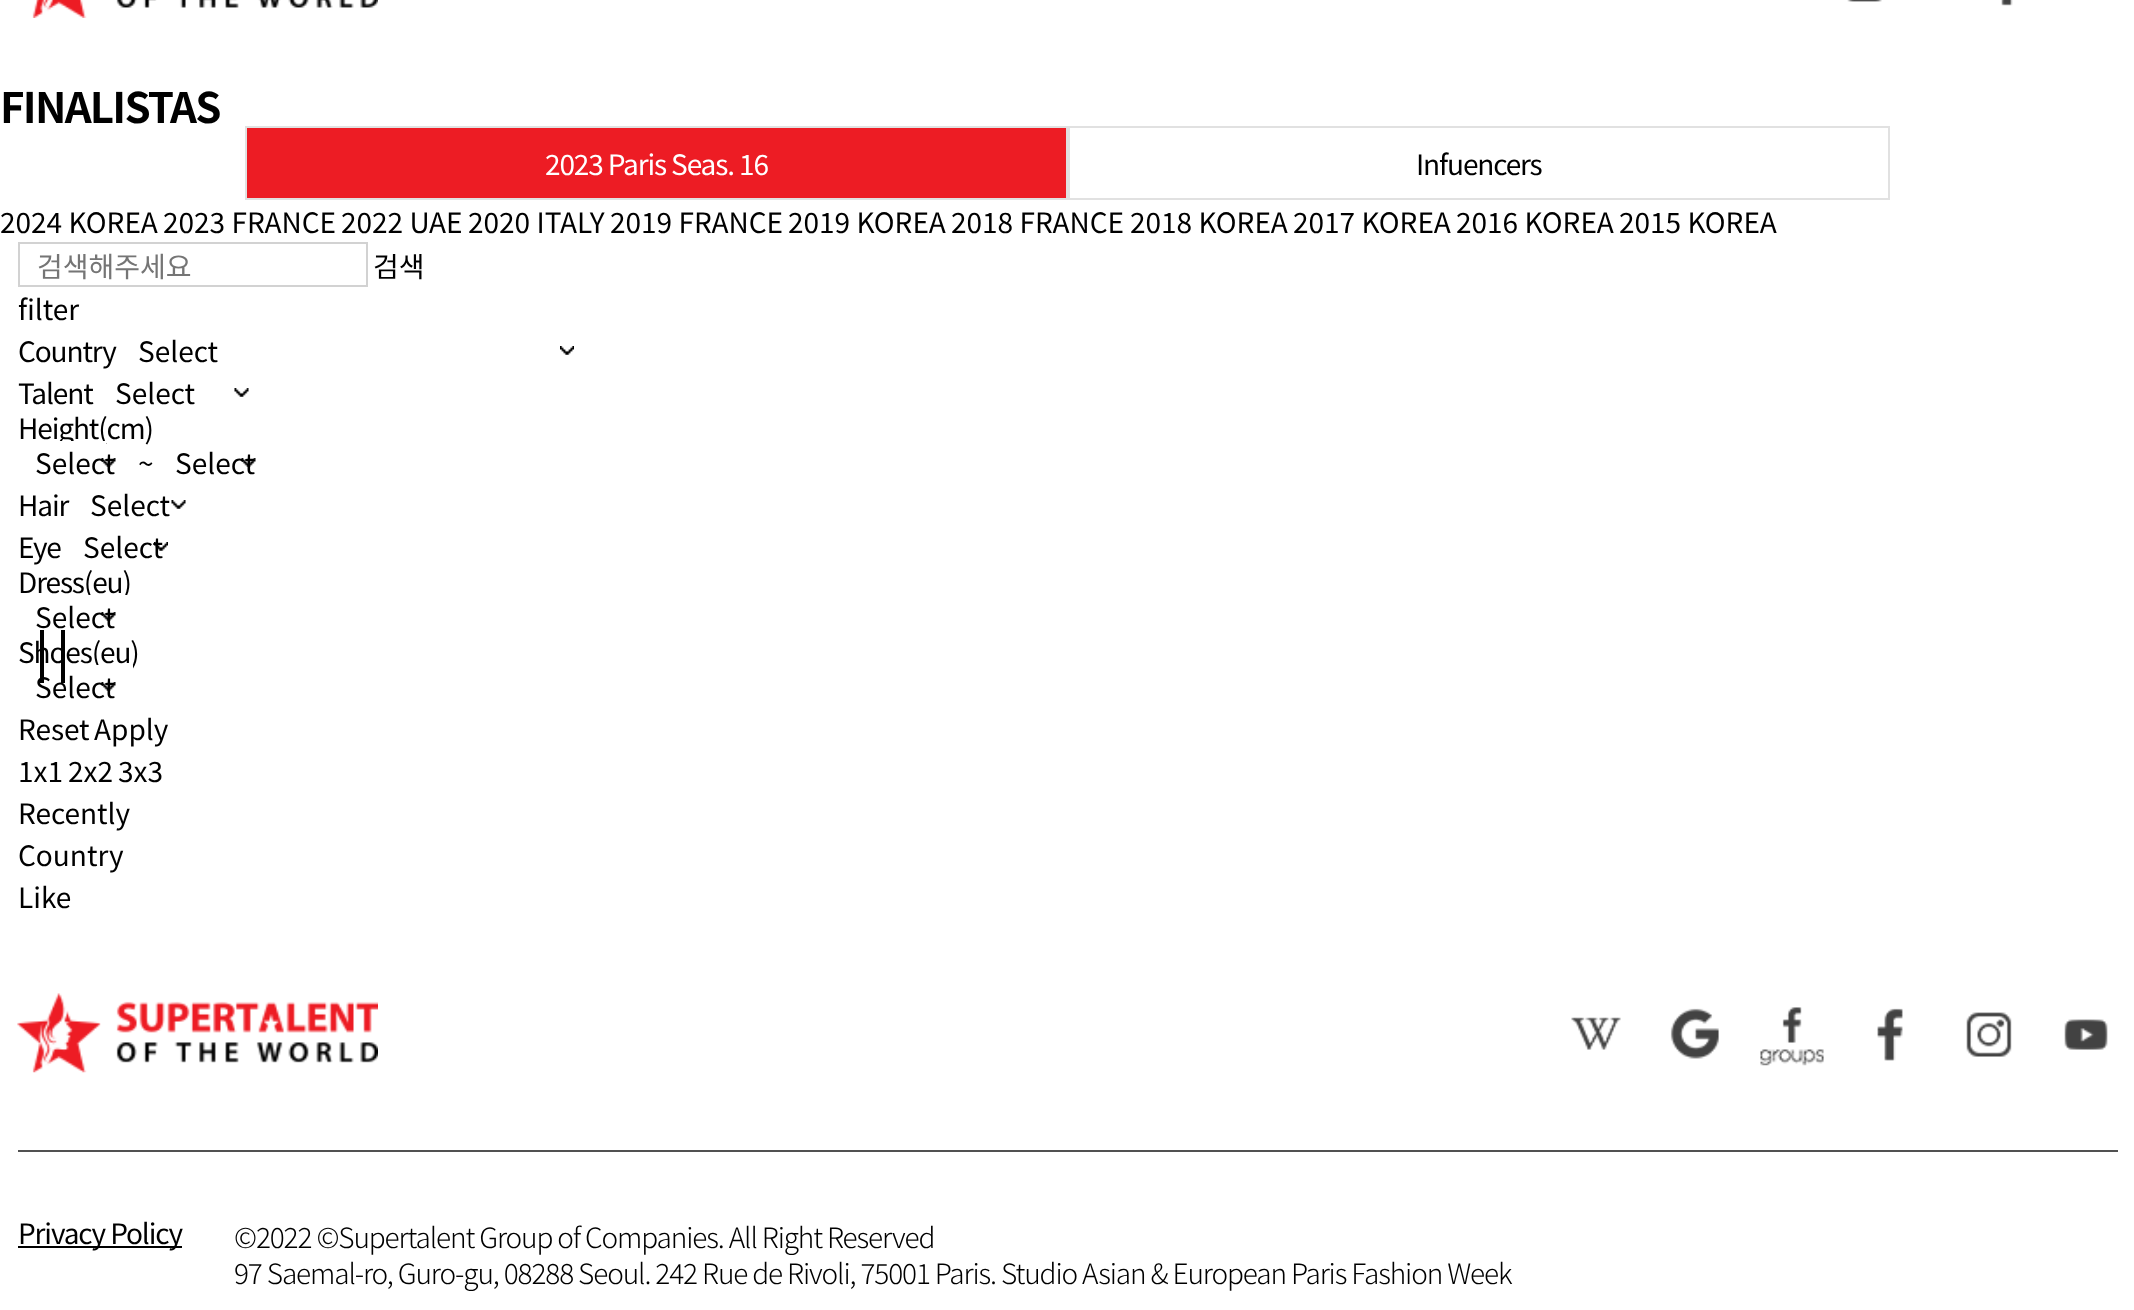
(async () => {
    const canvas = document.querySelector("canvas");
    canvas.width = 2134;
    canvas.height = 1310;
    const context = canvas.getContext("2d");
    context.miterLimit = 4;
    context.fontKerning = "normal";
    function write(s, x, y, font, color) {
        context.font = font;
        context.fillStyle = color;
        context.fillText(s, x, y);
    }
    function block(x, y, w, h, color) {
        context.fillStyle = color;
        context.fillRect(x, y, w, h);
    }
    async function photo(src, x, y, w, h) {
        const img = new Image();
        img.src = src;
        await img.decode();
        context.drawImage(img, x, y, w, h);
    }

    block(0, 0, 2134, 1310, "rgb(255, 255, 255)");
    await photo("media/1.png", 32, 0, 346, 18);
    await photo("media/2.png", 1847, 0, 35, 2);
    await photo("media/3.png", 2001, 0, 12, 6);
    block(40, 630, 4, 53, "rgb(0, 0, 0)");
    block(61, 630, 4, 53, "rgb(0, 0, 0)");
    context.letterSpacing = "-1.75px";
    write("FINALISTAS", 0, 123, "bold 42px Noto Sans KR", "rgb(0, 0, 0)");
    context.fillStyle = "rgb(237, 28, 36)";
    context.beginPath();
    context.rect(246, 127, 821, 72);
    context.fill();
    context.strokeStyle = "rgb(225, 225, 225)";
    context.lineWidth = 2;
    context.stroke();
    context.letterSpacing = "-1.12px";
    write("2023 Paris Seas. 16", 545, 175, "28px Noto Sans KR", "rgb(255, 255, 255)");
    context.strokeRect(1069, 127, 820, 72);
    write("Infuencers", 1416, 175, "28px Noto Sans KR", "rgb(0, 0, 0)");
    context.letterSpacing = "0px";
    write("2024 KOREA", 0, 233, "28px Noto Sans KR", "rgb(0, 0, 0)");
    write("2023 FRANCE", 163, 233, "28px Noto Sans KR", "rgb(0, 0, 0)");
    write("2022 UAE", 341, 233, "28px Noto Sans KR", "rgb(0, 0, 0)");
    write("2020 ITALY", 468, 233, "28px Noto Sans KR", "rgb(0, 0, 0)");
    write("2019 FRANCE", 610, 233, "28px Noto Sans KR", "rgb(0, 0, 0)");
    write("2019 KOREA", 788, 233, "28px Noto Sans KR", "rgb(0, 0, 0)");
    write("2018 FRANCE", 951, 233, "28px Noto Sans KR", "rgb(0, 0, 0)");
    write("2018 KOREA", 1130, 233, "28px Noto Sans KR", "rgb(0, 0, 0)");
    write("2017 KOREA", 1293, 233, "28px Noto Sans KR", "rgb(0, 0, 0)");
    write("2016 KOREA", 1456, 233, "28px Noto Sans KR", "rgb(0, 0, 0)");
    write("2015 KOREA", 1619, 233, "28px Noto Sans KR", "rgb(0, 0, 0)");
    context.strokeStyle = "rgb(210, 210, 210)";
    context.strokeRect(19, 243, 348, 43);
    write("검색해주세요", 37, 277, "28px Noto Sans KR", "rgb(117, 117, 117)");
    write("검색", 373, 277, "28px Noto Sans KR", "rgb(0, 0, 0)");
    write("filter", 18, 320, "28px Noto Sans KR", "rgb(0, 0, 0)");
    context.letterSpacing = "-1.12px";
    write("Country", 18, 362, "28px Noto Sans KR", "rgb(0, 0, 0)");
    await photo("media/4.png", 560, 346, 14, 9);
    context.letterSpacing = "0px";
    write("Select", 138, 362, "28px Noto Sans KR", "rgb(0, 0, 0)");
    context.letterSpacing = "-1.12px";
    write("Talent", 18, 404, "28px Noto Sans KR", "rgb(0, 0, 0)");
    await photo("media/5.png", 234, 388, 15, 9);
    context.letterSpacing = "0px";
    write("Select", 115, 404, "28px Noto Sans KR", "rgb(0, 0, 0)");
    context.letterSpacing = "-1.12px";
    write("Height(cm)", 18, 439, "28px Noto Sans KR", "rgb(0, 0, 0)");
    block(59, 441, 47, 5, "rgb(255, 255, 255)");
    await photo("media/5.png", 101, 458, 15, 9);
    context.letterSpacing = "0px";
    write("Select", 35, 474, "28px Noto Sans KR", "rgb(0, 0, 0)");
    context.letterSpacing = "-1.12px";
    write("~", 138, 474, "28px Noto Sans KR", "rgb(0, 0, 0)");
    await photo("media/5.png", 241, 458, 15, 9);
    context.letterSpacing = "0px";
    write("Select", 175, 474, "28px Noto Sans KR", "rgb(0, 0, 0)");
    context.letterSpacing = "-1.12px";
    write("Hair", 18, 516, "28px Noto Sans KR", "rgb(0, 0, 0)");
    await photo("media/5.png", 171, 500, 15, 9);
    context.letterSpacing = "0px";
    write("Select", 90, 516, "28px Noto Sans KR", "rgb(0, 0, 0)");
    context.letterSpacing = "-1.12px";
    write("Eye", 18, 558, "28px Noto Sans KR", "rgb(0, 0, 0)");
    await photo("media/6.png", 154, 542, 14, 9);
    context.letterSpacing = "0px";
    write("Select", 83, 558, "28px Noto Sans KR", "rgb(0, 0, 0)");
    context.letterSpacing = "-1.12px";
    write("Dress(eu)", 18, 593, "28px Noto Sans KR", "rgb(0, 0, 0)");
    block(88, 595, 39, 4, "rgb(255, 255, 255)");
    await photo("media/5.png", 101, 612, 15, 9);
    context.letterSpacing = "0px";
    write("Select", 35, 628, "28px Noto Sans KR", "rgb(0, 0, 0)");
    context.letterSpacing = "-1.12px";
    write("Shoes(eu)", 18, 663, "28px Noto Sans KR", "rgb(0, 0, 0)");
    block(96, 665, 37, 4, "rgb(255, 255, 255)");
    await photo("media/5.png", 101, 682, 15, 9);
    context.letterSpacing = "0px";
    write("Select", 35, 698, "28px Noto Sans KR", "rgb(0, 0, 0)");
    write("Reset", 18, 740, "28px Noto Sans KR", "rgb(0, 0, 0)");
    write("Apply", 94, 740, "28px Noto Sans KR", "rgb(0, 0, 0)");
    write("1x1", 18, 782, "28px Noto Sans KR", "rgb(0, 0, 0)");
    write("2x2", 68, 782, "28px Noto Sans KR", "rgb(0, 0, 0)");
    write("3x3", 118, 782, "28px Noto Sans KR", "rgb(0, 0, 0)");
    write("Recently", 18, 824, "28px Noto Sans KR", "rgb(0, 0, 0)");
    write("Country", 18, 866, "28px Noto Sans KR", "rgb(0, 0, 0)");
    write("Like", 18, 908, "28px Noto Sans KR", "rgb(0, 0, 0)");
    block(18, 1150, 2100, 2, "rgb(81, 81, 81)");
    await photo("media/7.png", 17, 993, 361, 80);
    await photo("media/8.png", 1571, 1017, 50, 33);
    await photo("media/9.png", 1670, 1008, 49, 51);
    await photo("media/10.png", 1760, 1007, 64, 59);
    await photo("media/11.png", 1877, 1008, 26, 53);
    await photo("media/12.png", 1966, 1012, 46, 45);
    await photo("media/13.png", 2064, 1019, 44, 31);
    block(18, 1246, 164, 2, "rgb(0, 0, 0)");
    context.letterSpacing = "-1.12px";
    write("Privacy Policy", 18, 1244, "28px Noto Sans KR", "rgb(0, 0, 0)");
    write("©2022 ©Supertalent Group of Companies. All Right Reserved", 234, 1248, "300 28px Noto Sans KR", "rgb(0, 0, 0)");
    write("97 Saemal-ro, Guro-gu, 08288 Seoul. 242 Rue de Rivoli, 75001 Paris. Studio Asian & European Paris Fashion Week", 234, 1284, "300 28px Noto Sans KR", "rgb(0, 0, 0)");
})();
